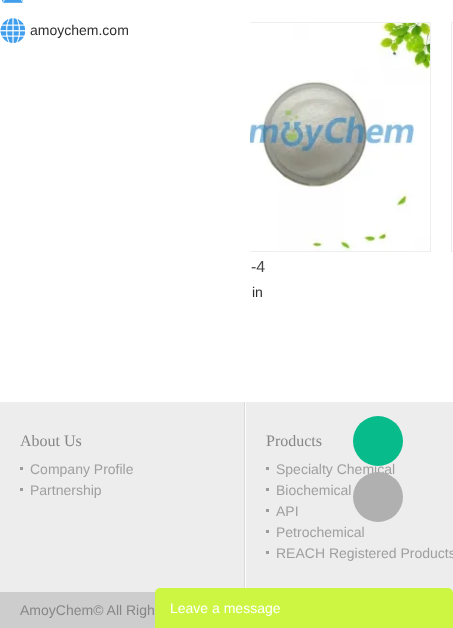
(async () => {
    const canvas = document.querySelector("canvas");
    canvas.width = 453;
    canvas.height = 628;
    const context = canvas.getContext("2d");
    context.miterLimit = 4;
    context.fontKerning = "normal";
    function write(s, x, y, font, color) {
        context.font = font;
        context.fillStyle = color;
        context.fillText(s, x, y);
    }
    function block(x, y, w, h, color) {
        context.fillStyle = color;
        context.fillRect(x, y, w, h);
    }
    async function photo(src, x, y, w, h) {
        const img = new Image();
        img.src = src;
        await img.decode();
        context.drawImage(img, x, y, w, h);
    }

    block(0, 0, 453, 628, "rgb(255, 255, 255)");
    await photo("media/1.png", 2, 0, 21, 3);
    await photo("media/2.png", 0, 18, 25, 25);
    write("amoychem.com", 30, 35, "14px Liberation Sans", "rgb(46, 46, 46)");
    context.strokeStyle = "rgb(238, 238, 238)";
    context.strokeRect(451.5, 22.5, 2, 229);
    context.save();
    context.beginPath();
    context.rect(250, 2, 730, 350);
    context.clip();
    context.strokeRect(201.5, 22.5, 229, 229);
    context.restore();
    await photo("media/3.png", 250, 23, 180, 228);
    write("-4", 251, 272, "16px Liberation Sans", "rgb(70, 70, 70)");
    write("in", 252, 297, "14px Liberation Sans", "rgb(46, 46, 46)");
    block(0, 402, 453, 190, "rgb(237, 237, 237)");
    write("Specialty Chemical", 276, 474, "14px Liberation Sans", "rgb(159, 159, 159)");
    context.fillStyle = "rgb(7, 187, 138)";
    context.beginPath();
    context.arc(378, 441, 25, 0, Math.PI * 2);
    context.fill();
    context.fillStyle = "rgb(176, 176, 176)";
    context.beginPath();
    context.arc(378, 497, 25, 0, Math.PI * 2);
    context.fill();
    block(244, 402, 1, 190, "rgb(217, 217, 217)");
    write("About Us", 20, 446, "16px Liberation Serif", "rgb(135, 135, 135)");
    block(20, 467, 3, 3, "rgb(156, 156, 156)");
    write("Company Profile", 30, 474, "14px Liberation Sans", "rgb(159, 159, 159)");
    block(20, 488, 3, 3, "rgb(156, 156, 156)");
    write("Partnership", 30, 495, "14px Liberation Sans", "rgb(159, 159, 159)");
    block(245, 402, 1, 190, "rgb(253, 253, 253)");
    write("Products", 266, 446, "16px Liberation Serif", "rgb(135, 135, 135)");
    block(266, 467, 3, 3, "rgb(156, 156, 156)");
    block(266, 488, 3, 3, "rgb(156, 156, 156)");
    write("Biochemical", 276, 495, "14px Liberation Sans", "rgb(159, 159, 159)");
    block(266, 509, 3, 3, "rgb(156, 156, 156)");
    write("API", 276, 516, "14px Liberation Sans", "rgb(159, 159, 159)");
    block(266, 530, 3, 3, "rgb(156, 156, 156)");
    write("Petrochemical", 276, 537, "14px Liberation Sans", "rgb(159, 159, 159)");
    block(266, 551, 3, 3, "rgb(156, 156, 156)");
    write("REACH Registered Products", 276, 558, "14px Liberation Sans", "rgb(159, 159, 159)");
    block(0, 592, 453, 36, "rgb(205, 205, 205)");
    write("AmoyChem© All Righ", 20, 615, "14px Liberation Sans", "rgb(135, 135, 135)");
    context.fillStyle = "rgb(204, 246, 65)";
    context.beginPath();
    context.roundRect(155, 588, 298, 40, [5, 5, 0, 0]);
    context.fill();
    write("Leave a message", 170, 613, "14px Liberation Sans", "rgb(255, 255, 255)");
})();
